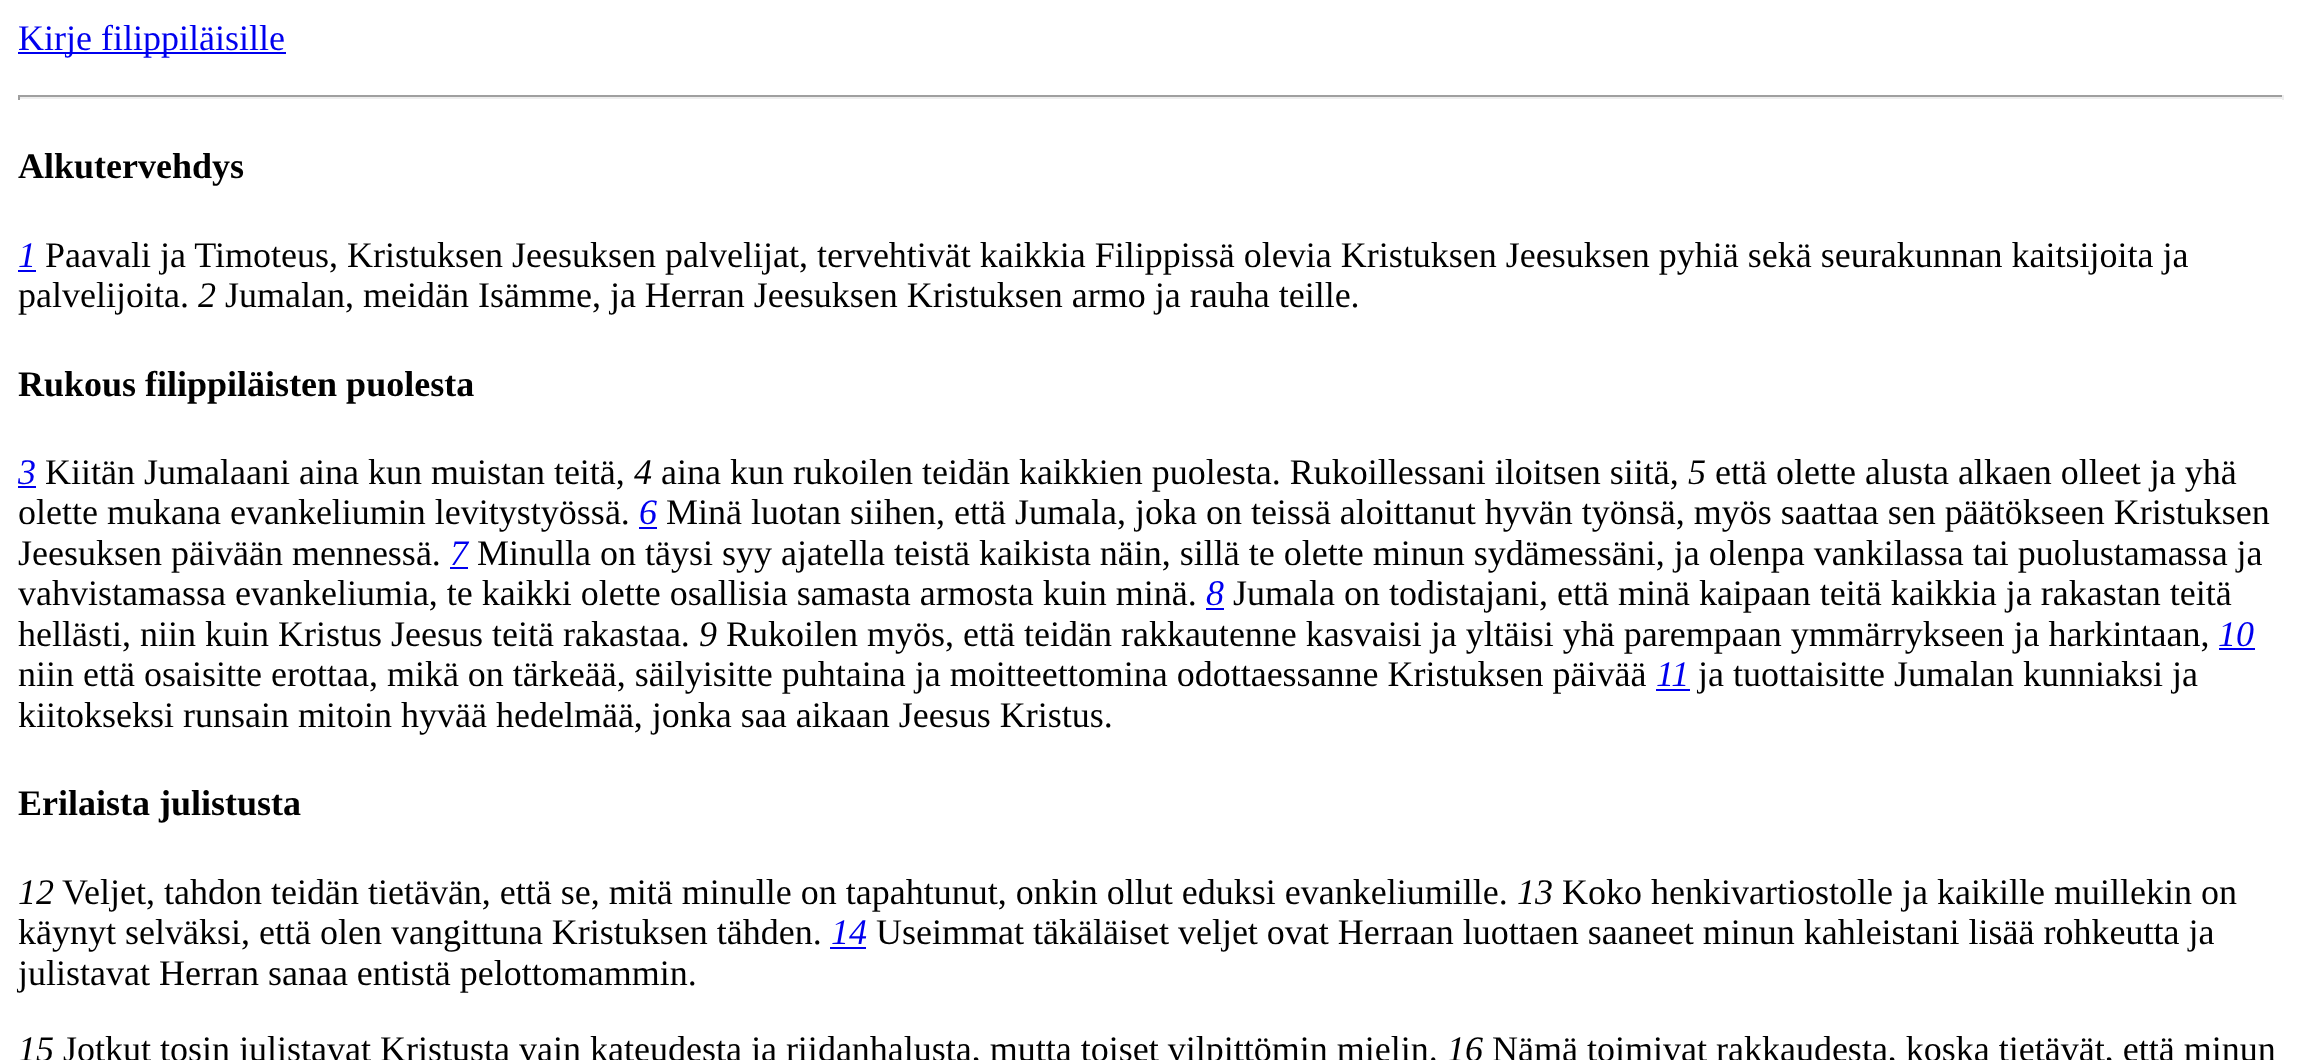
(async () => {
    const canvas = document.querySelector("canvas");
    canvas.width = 2300;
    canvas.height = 1060;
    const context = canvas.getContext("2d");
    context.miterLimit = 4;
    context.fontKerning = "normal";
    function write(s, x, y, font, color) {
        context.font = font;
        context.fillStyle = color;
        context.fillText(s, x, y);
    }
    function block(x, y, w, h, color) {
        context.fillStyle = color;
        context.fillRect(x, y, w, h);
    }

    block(0, 0, 2300, 1060, "rgb(255, 255, 255)");
    block(18, 52, 268, 2, "rgb(0, 0, 238)");
    write("Kirje filippiläisille", 18, 50, "36px Liberation Serif", "rgb(0, 0, 238)");
    block(18, 95, 2266, 2, "rgb(159, 159, 159)");
    block(2282, 95, 2, 5, "rgb(238, 238, 238)");
    block(18, 97, 2266, 2, "rgb(238, 238, 238)");
    block(18, 95, 2, 5, "rgb(159, 159, 159)");
    write("Alkutervehdys", 18, 178, "bold 36px Liberation Serif", "rgb(0, 0, 0)");
    write("1", 18, 267, "italic 36px Liberation Serif", "rgb(0, 0, 238)");
    block(18, 270, 18, 2, "rgb(0, 0, 238)");
    write("Paavali ja Timoteus, Kristuksen Jeesuksen palvelijat, tervehtivät kaikkia Filippissä olevia Kristuksen Jeesuksen pyhiä sekä seurakunnan kaitsijoita ja", 45, 267, "36px Liberation Serif", "rgb(0, 0, 0)");
    write("palvelijoita.", 18, 307, "36px Liberation Serif", "rgb(0, 0, 0)");
    write("2", 198, 307, "italic 36px Liberation Serif", "rgb(0, 0, 0)");
    write("Jumalan, meidän Isämme, ja Herran Jeesuksen Kristuksen armo ja rauha teille.", 225, 307, "36px Liberation Serif", "rgb(0, 0, 0)");
    write("Rukous filippiläisten puolesta", 18, 396, "bold 36px Liberation Serif", "rgb(0, 0, 0)");
    write("3", 18, 484, "italic 36px Liberation Serif", "rgb(0, 0, 238)");
    block(18, 486, 18, 2, "rgb(0, 0, 238)");
    write("Kiitän Jumalaani aina kun muistan teitä,", 45, 484, "36px Liberation Serif", "rgb(0, 0, 0)");
    write("4", 634, 484, "italic 36px Liberation Serif", "rgb(0, 0, 0)");
    write("aina kun rukoilen teidän kaikkien puolesta. Rukoillessani iloitsen siitä,", 661, 484, "36px Liberation Serif", "rgb(0, 0, 0)");
    write("5", 1688, 484, "italic 36px Liberation Serif", "rgb(0, 0, 0)");
    write("että olette alusta alkaen olleet ja yhä", 1715, 484, "36px Liberation Serif", "rgb(0, 0, 0)");
    write("olette mukana evankeliumin levitystyössä.", 18, 524, "36px Liberation Serif", "rgb(0, 0, 0)");
    write("6", 639, 524, "italic 36px Liberation Serif", "rgb(0, 0, 238)");
    block(639, 527, 18, 2, "rgb(0, 0, 238)");
    write("Minä luotan siihen, että Jumala, joka on teissä aloittanut hyvän työnsä, myös saattaa sen päätökseen Kristuksen", 666, 524, "36px Liberation Serif", "rgb(0, 0, 0)");
    write("Jeesuksen päivään mennessä.", 18, 565, "36px Liberation Serif", "rgb(0, 0, 0)");
    write("7", 450, 565, "italic 36px Liberation Serif", "rgb(0, 0, 238)");
    block(450, 567, 18, 2, "rgb(0, 0, 238)");
    write("Minulla on täysi syy ajatella teistä kaikista näin, sillä te olette minun sydämessäni, ja olenpa vankilassa tai puolustamassa ja", 477, 565, "36px Liberation Serif", "rgb(0, 0, 0)");
    write("vahvistamassa evankeliumia, te kaikki olette osallisia samasta armosta kuin minä.", 18, 605, "36px Liberation Serif", "rgb(0, 0, 0)");
    write("8", 1206, 605, "italic 36px Liberation Serif", "rgb(0, 0, 238)");
    block(1206, 608, 18, 2, "rgb(0, 0, 238)");
    write("Jumala on todistajani, että minä kaipaan teitä kaikkia ja rakastan teitä", 1233, 605, "36px Liberation Serif", "rgb(0, 0, 0)");
    write("hellästi, niin kuin Kristus Jeesus teitä rakastaa.", 18, 646, "36px Liberation Serif", "rgb(0, 0, 0)");
    write("9", 699, 646, "italic 36px Liberation Serif", "rgb(0, 0, 0)");
    write("Rukoilen myös, että teidän rakkautenne kasvaisi ja yltäisi yhä parempaan ymmärrykseen ja harkintaan,", 726, 646, "36px Liberation Serif", "rgb(0, 0, 0)");
    write("10", 2218, 646, "italic 36px Liberation Serif", "rgb(0, 0, 238)");
    block(2219, 648, 36, 2, "rgb(0, 0, 238)");
    write("niin että osaisitte erottaa, mikä on tärkeää, säilyisitte puhtaina ja moitteettomina odottaessanne Kristuksen päivää", 18, 686, "36px Liberation Serif", "rgb(0, 0, 0)");
    write("11", 1656, 686, "italic 36px Liberation Serif", "rgb(0, 0, 238)");
    block(1656, 689, 34, 2, "rgb(0, 0, 238)");
    write("ja tuottaisitte Jumalan kunniaksi ja", 1698, 686, "36px Liberation Serif", "rgb(0, 0, 0)");
    write("kiitokseksi runsain mitoin hyvää hedelmää, jonka saa aikaan Jeesus Kristus.", 18, 727, "36px Liberation Serif", "rgb(0, 0, 0)");
    write("Erilaista julistusta", 18, 815, "bold 36px Liberation Serif", "rgb(0, 0, 0)");
    write("12", 18, 904, "italic 36px Liberation Serif", "rgb(0, 0, 0)");
    write("Veljet, tahdon teidän tietävän, että se, mitä minulle on tapahtunut, onkin ollut eduksi evankeliumille.", 62, 904, "36px Liberation Serif", "rgb(0, 0, 0)");
    write("13", 1517, 904, "italic 36px Liberation Serif", "rgb(0, 0, 0)");
    write("Koko henkivartiostolle ja kaikille muillekin on", 1562, 904, "36px Liberation Serif", "rgb(0, 0, 0)");
    write("käynyt selväksi, että olen vangittuna Kristuksen tähden.", 18, 944, "36px Liberation Serif", "rgb(0, 0, 0)");
    write("14", 831, 944, "italic 36px Liberation Serif", "rgb(0, 0, 238)");
    block(830, 947, 36, 2, "rgb(0, 0, 238)");
    write("Useimmat täkäläiset veljet ovat Herraan luottaen saaneet minun kahleistani lisää rohkeutta ja", 876, 944, "36px Liberation Serif", "rgb(0, 0, 0)");
    write("julistavat Herran sanaa entistä pelottomammin.", 18, 985, "36px Liberation Serif", "rgb(0, 0, 0)");
    write("15", 18, 1061, "italic 36px Liberation Serif", "rgb(0, 0, 0)");
    write("Jotkut tosin julistavat Kristusta vain kateudesta ja riidanhalusta, mutta toiset vilpittömin mielin.", 63, 1061, "36px Liberation Serif", "rgb(0, 0, 0)");
    write("16", 1447, 1061, "italic 36px Liberation Serif", "rgb(0, 0, 0)");
    write("Nämä toimivat rakkaudesta, koska tietävät, että minun", 1492, 1061, "36px Liberation Serif", "rgb(0, 0, 0)");
})();
